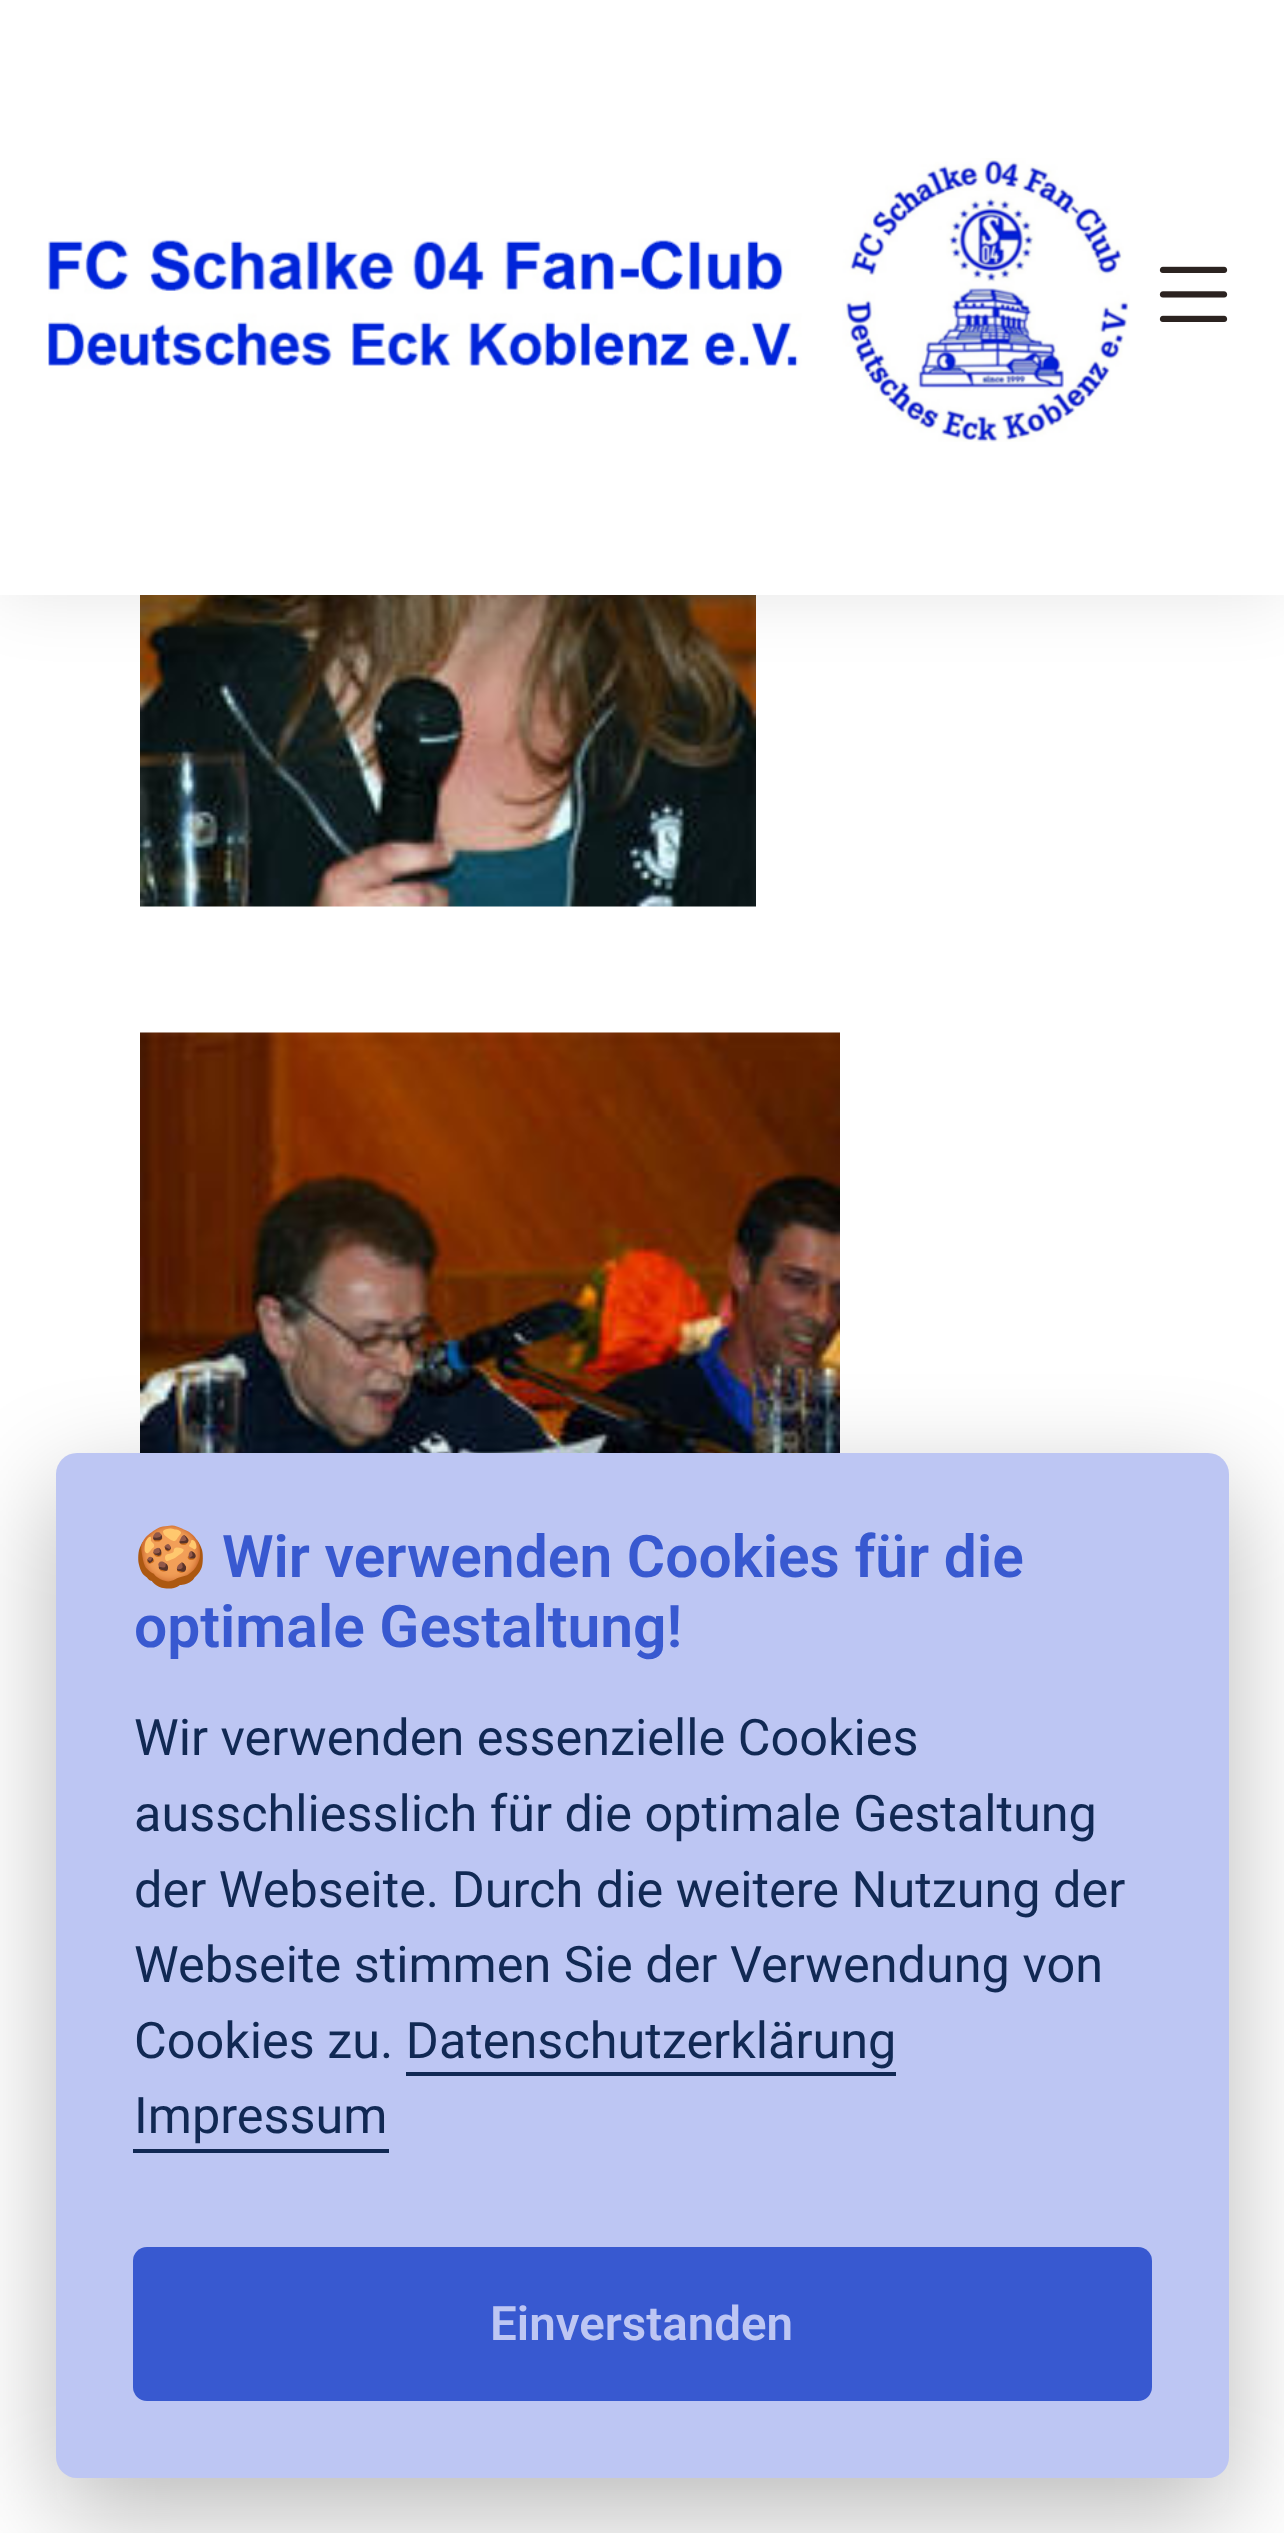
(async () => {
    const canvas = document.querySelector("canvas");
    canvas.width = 1284;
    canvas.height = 2533;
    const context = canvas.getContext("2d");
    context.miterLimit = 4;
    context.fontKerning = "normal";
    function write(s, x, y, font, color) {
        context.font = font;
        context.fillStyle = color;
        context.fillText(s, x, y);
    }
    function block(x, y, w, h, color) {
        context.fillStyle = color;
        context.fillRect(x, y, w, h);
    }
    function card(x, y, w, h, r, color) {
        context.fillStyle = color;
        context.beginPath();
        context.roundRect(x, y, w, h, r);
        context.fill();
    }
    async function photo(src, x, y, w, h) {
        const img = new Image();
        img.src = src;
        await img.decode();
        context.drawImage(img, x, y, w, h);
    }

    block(0, 0, 1284, 2533, "rgb(255, 255, 255)");
    await photo("media/3.png", 140, 595, 616, 312);
    context.fillStyle = "rgba(0, 0, 0, 0.1)";
    context.filter = "blur(35px)";
    context.beginPath();
    context.rect(0, 0, 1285, 595);
    context.fill();
    context.filter = "none";
    block(0, 0, 1284, 595, "rgb(255, 255, 255)");
    await photo("media/1.png", 48, 158, 1082, 284);
    await photo("media/2.png", 1159, 266, 69, 56);
    await photo("media/4.png", 140, 1032, 700, 421);
    context.fillStyle = "rgba(2, 2, 3, 0.28)";
    context.filter = "blur(52.5px)";
    context.beginPath();
    context.roundRect(56, 1488, 1173, 1025, 21);
    context.fill();
    context.filter = "none";
    card(56, 1453, 1173, 1025, 21, "rgb(189, 198, 243)");
    write("🍪", 134, 1577, "bold 58.75px Noto Color Emoji", "rgb(56, 89, 208)");
    write("Wir verwenden Cookies für die", 222, 1577, "600 58.75px Roboto", "rgb(56, 89, 208)");
    write("optimale Gestaltung!", 134, 1647, "600 58.75px Roboto", "rgb(56, 89, 208)");
    write("Wir verwenden essenzielle Cookies", 134, 1755, "50.4px Roboto", "rgb(17, 41, 84)");
    write("ausschliesslich für die optimale Gestaltung", 134, 1831, "50.4px Roboto", "rgb(17, 41, 84)");
    write("der Webseite. Durch die weitere Nutzung der", 134, 1907, "50.4px Roboto", "rgb(17, 41, 84)");
    write("Webseite stimmen Sie der Verwendung von", 134, 1982, "50.4px Roboto", "rgb(17, 41, 84)");
    write("Cookies zu. Datenschutzerklärung", 134, 2058, "50.4px Roboto", "rgb(17, 41, 84)");
    block(406, 2072, 490, 4, "rgb(17, 41, 84)");
    write("Impressum", 134, 2133, "50.4px Roboto", "rgb(17, 41, 84)");
    block(133, 2149, 256, 4, "rgb(17, 41, 84)");
    card(133, 2247, 1019, 154, 14, "rgb(56, 89, 208)");
    write("Einverstanden", 490, 2340, "600 47.5px Roboto", "rgb(189, 198, 243)");
})();
